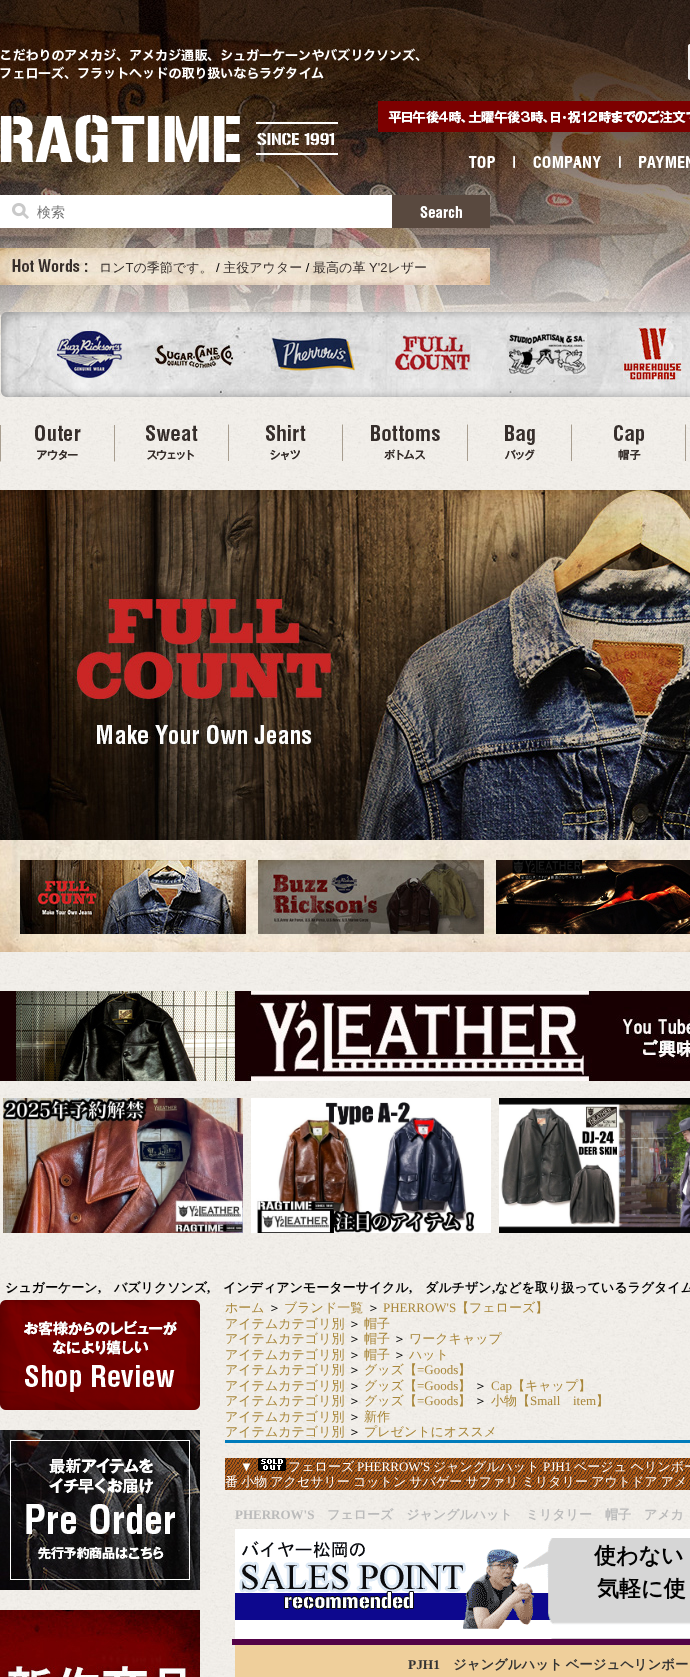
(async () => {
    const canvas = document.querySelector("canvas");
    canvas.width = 690;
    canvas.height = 1677;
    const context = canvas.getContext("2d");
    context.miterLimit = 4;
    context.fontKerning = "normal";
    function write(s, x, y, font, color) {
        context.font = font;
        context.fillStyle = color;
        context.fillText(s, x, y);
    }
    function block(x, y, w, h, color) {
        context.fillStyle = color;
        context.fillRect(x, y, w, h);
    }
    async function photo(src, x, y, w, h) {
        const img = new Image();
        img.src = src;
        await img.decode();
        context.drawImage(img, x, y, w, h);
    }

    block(0, 0, 690, 1677, "rgb(255, 255, 255)");
    await photo("media/1.png", 0, 1233, 690, 444);
    await photo("media/2.png", 0, 0, 690, 1233);
    write("シュガーケーン", 5, 1292, "bold 13px WenQuanYi Zen Hei", "rgb(0, 0, 0)");
    write(",", 98, 1292, "bold 13px Liberation Serif", "rgb(0, 0, 0)");
    write("バズリクソンズ", 114, 1292, "bold 13px WenQuanYi Zen Hei", "rgb(0, 0, 0)");
    write(",", 207, 1292, "bold 13px Liberation Serif", "rgb(0, 0, 0)");
    write("インディアンモーターサイクル", 223, 1292, "bold 13px WenQuanYi Zen Hei", "rgb(0, 0, 0)");
    write(",", 409, 1292, "bold 13px Liberation Serif", "rgb(0, 0, 0)");
    write("ダルチザン", 425, 1292, "bold 13px WenQuanYi Zen Hei", "rgb(0, 0, 0)");
    write(",", 492, 1292, "bold 13px Liberation Serif", "rgb(0, 0, 0)");
    write("などを取り扱っているラグタイム", 495, 1292, "bold 13px WenQuanYi Zen Hei", "rgb(0, 0, 0)");
    await photo("media/3.png", 0, 1300, 200, 377);
    block(225, 1440, 465, 3, "rgb(0, 123, 187)");
    write("ホーム", 225, 1312, "500 13px WenQuanYi Zen Hei", "rgb(168, 134, 57)");
    write("＞", 268, 1312, "500 13px WenQuanYi Zen Hei", "rgb(0, 0, 0)");
    write("ブランド一覧", 284, 1312, "500 13px WenQuanYi Zen Hei", "rgb(168, 134, 57)");
    write("＞", 367, 1312, "500 13px WenQuanYi Zen Hei", "rgb(0, 0, 0)");
    write("PHERROW'S", 383, 1312, "13px Liberation Serif", "rgb(168, 134, 57)");
    write("【フェローズ】", 456, 1312, "500 13px WenQuanYi Zen Hei", "rgb(168, 134, 57)");
    write("アイテムカテゴリ別", 225, 1328, "500 13px WenQuanYi Zen Hei", "rgb(168, 134, 57)");
    write("＞", 348, 1328, "500 13px WenQuanYi Zen Hei", "rgb(0, 0, 0)");
    write("帽子", 364, 1328, "500 13px WenQuanYi Zen Hei", "rgb(168, 134, 57)");
    write("アイテムカテゴリ別", 225, 1343, "500 13px WenQuanYi Zen Hei", "rgb(168, 134, 57)");
    write("＞", 348, 1343, "500 13px WenQuanYi Zen Hei", "rgb(0, 0, 0)");
    write("帽子", 364, 1343, "500 13px WenQuanYi Zen Hei", "rgb(168, 134, 57)");
    write("＞", 393, 1343, "500 13px WenQuanYi Zen Hei", "rgb(0, 0, 0)");
    write("ワークキャップ", 409, 1343, "500 13px WenQuanYi Zen Hei", "rgb(168, 134, 57)");
    write("アイテムカテゴリ別", 225, 1359, "500 13px WenQuanYi Zen Hei", "rgb(168, 134, 57)");
    write("＞", 348, 1359, "500 13px WenQuanYi Zen Hei", "rgb(0, 0, 0)");
    write("帽子", 364, 1359, "500 13px WenQuanYi Zen Hei", "rgb(168, 134, 57)");
    write("＞", 393, 1359, "500 13px WenQuanYi Zen Hei", "rgb(0, 0, 0)");
    write("ハット", 409, 1359, "500 13px WenQuanYi Zen Hei", "rgb(168, 134, 57)");
    write("アイテムカテゴリ別", 225, 1374, "500 13px WenQuanYi Zen Hei", "rgb(168, 134, 57)");
    write("＞", 348, 1374, "500 13px WenQuanYi Zen Hei", "rgb(0, 0, 0)");
    write("グッズ【", 364, 1374, "500 13px WenQuanYi Zen Hei", "rgb(168, 134, 57)");
    write("=Goods", 417, 1374, "13px Liberation Serif", "rgb(168, 134, 57)");
    write("】", 458, 1374, "500 13px WenQuanYi Zen Hei", "rgb(168, 134, 57)");
    write("アイテムカテゴリ別", 225, 1390, "500 13px WenQuanYi Zen Hei", "rgb(168, 134, 57)");
    write("＞", 348, 1390, "500 13px WenQuanYi Zen Hei", "rgb(0, 0, 0)");
    write("グッズ【", 364, 1390, "500 13px WenQuanYi Zen Hei", "rgb(168, 134, 57)");
    write("=Goods", 417, 1390, "13px Liberation Serif", "rgb(168, 134, 57)");
    write("】", 458, 1390, "500 13px WenQuanYi Zen Hei", "rgb(168, 134, 57)");
    write("＞", 474, 1390, "500 13px WenQuanYi Zen Hei", "rgb(0, 0, 0)");
    write("Cap", 491, 1390, "13px Liberation Serif", "rgb(168, 134, 57)");
    write("【キャップ】", 512, 1390, "500 13px WenQuanYi Zen Hei", "rgb(168, 134, 57)");
    write("アイテムカテゴリ別", 225, 1405, "500 13px WenQuanYi Zen Hei", "rgb(168, 134, 57)");
    write("＞", 348, 1405, "500 13px WenQuanYi Zen Hei", "rgb(0, 0, 0)");
    write("グッズ【", 364, 1405, "500 13px WenQuanYi Zen Hei", "rgb(168, 134, 57)");
    write("=Goods", 417, 1405, "13px Liberation Serif", "rgb(168, 134, 57)");
    write("】", 458, 1405, "500 13px WenQuanYi Zen Hei", "rgb(168, 134, 57)");
    write("＞", 474, 1405, "500 13px WenQuanYi Zen Hei", "rgb(0, 0, 0)");
    write("小物【", 491, 1405, "500 13px WenQuanYi Zen Hei", "rgb(168, 134, 57)");
    write("Small", 530, 1405, "13px Liberation Serif", "rgb(168, 134, 57)");
    write("item", 573, 1405, "13px Liberation Serif", "rgb(168, 134, 57)");
    write("】", 596, 1405, "500 13px WenQuanYi Zen Hei", "rgb(168, 134, 57)");
    write("アイテムカテゴリ別", 225, 1421, "500 13px WenQuanYi Zen Hei", "rgb(168, 134, 57)");
    write("＞", 348, 1421, "500 13px WenQuanYi Zen Hei", "rgb(0, 0, 0)");
    write("新作", 364, 1421, "500 13px WenQuanYi Zen Hei", "rgb(168, 134, 57)");
    write("アイテムカテゴリ別", 225, 1436, "500 13px WenQuanYi Zen Hei", "rgb(168, 134, 57)");
    write("＞", 348, 1436, "500 13px WenQuanYi Zen Hei", "rgb(0, 0, 0)");
    write("プレゼントにオススメ", 364, 1436, "500 13px WenQuanYi Zen Hei", "rgb(168, 134, 57)");
    await photo("media/4.png", 225, 1458, 465, 32);
    write("▼", 240, 1471, "13px Liberation Serif", "rgb(255, 255, 255)");
    await photo("media/5.png", 258, 1458, 28, 13);
    write("フェローズ", 288, 1471, "500 13px WenQuanYi Zen Hei", "rgb(255, 255, 255)");
    write("PHERROW'S", 357, 1471, "13px Liberation Serif", "rgb(255, 255, 255)");
    write("ジャングルハット", 433, 1471, "500 13px WenQuanYi Zen Hei", "rgb(255, 255, 255)");
    write("PJH1", 543, 1471, "13px Liberation Serif", "rgb(255, 255, 255)");
    write("ベージュ ヘリンボー", 574, 1471, "500 13px WenQuanYi Zen Hei", "rgb(255, 255, 255)");
    context.wordSpacing = "-0.75px";
    write("番 小物 アクセサリー コットン サバゲー サファリ ミリタリー アウトドア アメ", 225, 1486, "500 13px WenQuanYi Zen Hei", "rgb(255, 255, 255)");
    context.wordSpacing = "0px";
    write("PHERROW'S", 235, 1519, "bold 13px Liberation Serif", "rgb(187, 187, 187)");
    write("フェローズ　ジャングルハット　ミリタリー　帽子　アメカ", 327, 1519, "bold 13px WenQuanYi Zen Hei", "rgb(187, 187, 187)");
    await photo("media/6.png", 235, 1529, 455, 110);
    block(232, 1639, 458, 6, "rgb(84, 2, 71)");
    write("使わない", 594, 1563, "bold 22px WenQuanYi Zen Hei", "rgb(0, 0, 0)");
    write("気軽に使", 597, 1596, "bold 22px WenQuanYi Zen Hei", "rgb(0, 0, 0)");
    block(235, 1645, 455, 32, "rgb(239, 207, 155)");
    write("PJH1", 408, 1669, "bold 13.4px Liberation Serif", "rgb(51, 51, 51)");
    context.wordSpacing = "-1px";
    write("ジャングルハット ベージュヘリンボー", 453, 1669, "bold 13.4px WenQuanYi Zen Hei", "rgb(51, 51, 51)");
})();
